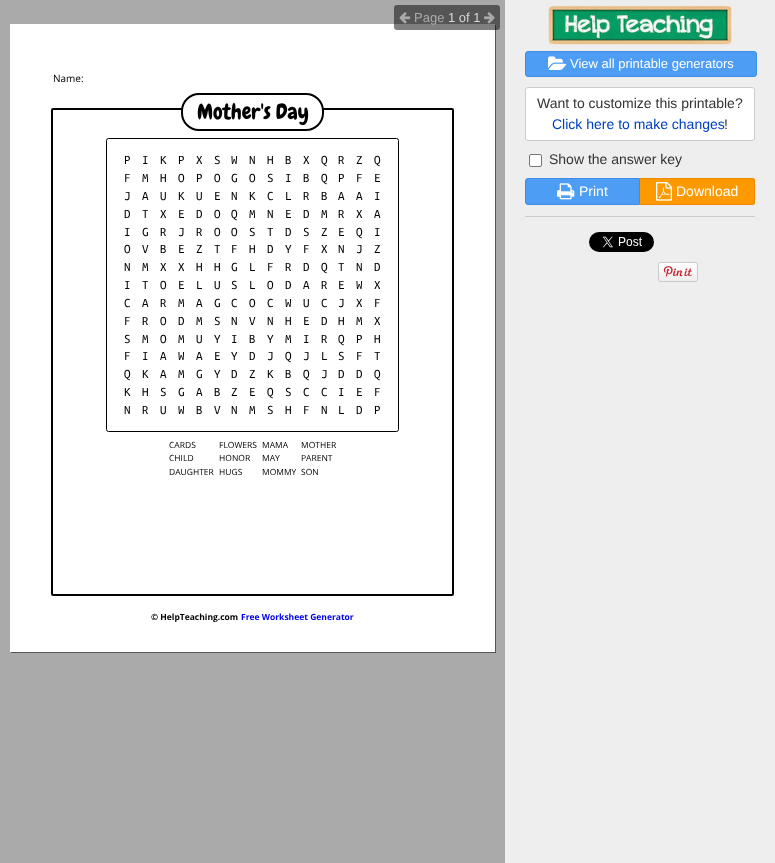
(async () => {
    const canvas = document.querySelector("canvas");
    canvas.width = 775;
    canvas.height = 863;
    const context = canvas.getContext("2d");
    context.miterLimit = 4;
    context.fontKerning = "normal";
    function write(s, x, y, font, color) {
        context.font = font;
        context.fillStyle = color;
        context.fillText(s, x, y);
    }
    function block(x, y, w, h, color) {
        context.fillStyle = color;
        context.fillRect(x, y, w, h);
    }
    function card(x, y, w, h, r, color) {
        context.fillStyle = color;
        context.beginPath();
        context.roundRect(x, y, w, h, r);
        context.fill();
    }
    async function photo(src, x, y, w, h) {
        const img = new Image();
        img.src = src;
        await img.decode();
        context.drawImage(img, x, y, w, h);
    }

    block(0, 0, 775, 863, "rgb(170, 170, 170)");
    context.fillStyle = "rgba(0, 0, 0, 0.5)";
    context.filter = "blur(0.5px)";
    context.beginPath();
    context.rect(11, 25, 485, 628);
    context.fill();
    context.filter = "none";
    block(10, 24, 485, 628, "rgb(255, 255, 255)");
    card(394, 5, 106, 25, 3, "rgba(0, 0, 0, 0.5)");
    await photo("media/1.png", 399, 12, 12, 12);
    write("Page", 414, 22, "13px Liberation Sans", "rgb(170, 170, 170)");
    write("1 of 1", 448, 22, "13px Liberation Sans", "rgb(213, 213, 213)");
    await photo("media/2.png", 484, 12, 11, 12);
    write("Name:", 53, 82, "10px Open Sans", "rgb(0, 0, 0)");
    context.beginPath();
    context.roundRect(52, 109, 401, 486, 1);
    context.strokeStyle = "rgb(0, 0, 0)";
    context.lineWidth = 2;
    context.stroke();
    context.fillStyle = "rgb(255, 255, 255)";
    context.beginPath();
    context.roundRect(182, 94, 141, 36, 17);
    context.fill();
    context.stroke();
    write("Mother's Day", 197, 119, "21.5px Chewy", "rgb(0, 0, 0)");
    context.beginPath();
    context.roundRect(106.5, 138.5, 292, 293, 2);
    context.lineWidth = 1;
    context.stroke();
    write("P", 124, 164, "13px Ubuntu Mono", "rgb(0, 0, 0)");
    write("I", 142, 164, "13px Ubuntu Mono", "rgb(0, 0, 0)");
    write("K", 160, 164, "13px Ubuntu Mono", "rgb(0, 0, 0)");
    write("P", 178, 164, "13px Ubuntu Mono", "rgb(0, 0, 0)");
    write("X", 196, 164, "13px Ubuntu Mono", "rgb(0, 0, 0)");
    write("S", 214, 164, "13px Ubuntu Mono", "rgb(0, 0, 0)");
    write("W", 231, 164, "13px Ubuntu Mono", "rgb(0, 0, 0)");
    write("N", 249, 164, "13px Ubuntu Mono", "rgb(0, 0, 0)");
    write("H", 267, 164, "13px Ubuntu Mono", "rgb(0, 0, 0)");
    write("B", 285, 164, "13px Ubuntu Mono", "rgb(0, 0, 0)");
    write("X", 303, 164, "13px Ubuntu Mono", "rgb(0, 0, 0)");
    write("Q", 321, 164, "13px Ubuntu Mono", "rgb(0, 0, 0)");
    write("R", 338, 164, "13px Ubuntu Mono", "rgb(0, 0, 0)");
    write("Z", 356, 164, "13px Ubuntu Mono", "rgb(0, 0, 0)");
    write("Q", 374, 164, "13px Ubuntu Mono", "rgb(0, 0, 0)");
    write("F", 124, 182, "13px Ubuntu Mono", "rgb(0, 0, 0)");
    write("M", 142, 182, "13px Ubuntu Mono", "rgb(0, 0, 0)");
    write("H", 160, 182, "13px Ubuntu Mono", "rgb(0, 0, 0)");
    write("O", 178, 182, "13px Ubuntu Mono", "rgb(0, 0, 0)");
    write("P", 196, 182, "13px Ubuntu Mono", "rgb(0, 0, 0)");
    write("O", 214, 182, "13px Ubuntu Mono", "rgb(0, 0, 0)");
    write("G", 231, 182, "13px Ubuntu Mono", "rgb(0, 0, 0)");
    write("O", 249, 182, "13px Ubuntu Mono", "rgb(0, 0, 0)");
    write("S", 267, 182, "13px Ubuntu Mono", "rgb(0, 0, 0)");
    write("I", 285, 182, "13px Ubuntu Mono", "rgb(0, 0, 0)");
    write("B", 303, 182, "13px Ubuntu Mono", "rgb(0, 0, 0)");
    write("Q", 321, 182, "13px Ubuntu Mono", "rgb(0, 0, 0)");
    write("P", 338, 182, "13px Ubuntu Mono", "rgb(0, 0, 0)");
    write("F", 356, 182, "13px Ubuntu Mono", "rgb(0, 0, 0)");
    write("E", 374, 182, "13px Ubuntu Mono", "rgb(0, 0, 0)");
    write("J", 124, 200, "13px Ubuntu Mono", "rgb(0, 0, 0)");
    write("A", 142, 200, "13px Ubuntu Mono", "rgb(0, 0, 0)");
    write("U", 160, 200, "13px Ubuntu Mono", "rgb(0, 0, 0)");
    write("K", 178, 200, "13px Ubuntu Mono", "rgb(0, 0, 0)");
    write("U", 196, 200, "13px Ubuntu Mono", "rgb(0, 0, 0)");
    write("E", 214, 200, "13px Ubuntu Mono", "rgb(0, 0, 0)");
    write("N", 231, 200, "13px Ubuntu Mono", "rgb(0, 0, 0)");
    write("K", 249, 200, "13px Ubuntu Mono", "rgb(0, 0, 0)");
    write("C", 267, 200, "13px Ubuntu Mono", "rgb(0, 0, 0)");
    write("L", 285, 200, "13px Ubuntu Mono", "rgb(0, 0, 0)");
    write("R", 303, 200, "13px Ubuntu Mono", "rgb(0, 0, 0)");
    write("B", 321, 200, "13px Ubuntu Mono", "rgb(0, 0, 0)");
    write("A", 338, 200, "13px Ubuntu Mono", "rgb(0, 0, 0)");
    write("A", 356, 200, "13px Ubuntu Mono", "rgb(0, 0, 0)");
    write("I", 374, 200, "13px Ubuntu Mono", "rgb(0, 0, 0)");
    write("D", 124, 218, "13px Ubuntu Mono", "rgb(0, 0, 0)");
    write("T", 142, 218, "13px Ubuntu Mono", "rgb(0, 0, 0)");
    write("X", 160, 218, "13px Ubuntu Mono", "rgb(0, 0, 0)");
    write("E", 178, 218, "13px Ubuntu Mono", "rgb(0, 0, 0)");
    write("D", 196, 218, "13px Ubuntu Mono", "rgb(0, 0, 0)");
    write("O", 214, 218, "13px Ubuntu Mono", "rgb(0, 0, 0)");
    write("Q", 231, 218, "13px Ubuntu Mono", "rgb(0, 0, 0)");
    write("M", 249, 218, "13px Ubuntu Mono", "rgb(0, 0, 0)");
    write("N", 267, 218, "13px Ubuntu Mono", "rgb(0, 0, 0)");
    write("E", 285, 218, "13px Ubuntu Mono", "rgb(0, 0, 0)");
    write("D", 303, 218, "13px Ubuntu Mono", "rgb(0, 0, 0)");
    write("M", 321, 218, "13px Ubuntu Mono", "rgb(0, 0, 0)");
    write("R", 338, 218, "13px Ubuntu Mono", "rgb(0, 0, 0)");
    write("X", 356, 218, "13px Ubuntu Mono", "rgb(0, 0, 0)");
    write("A", 374, 218, "13px Ubuntu Mono", "rgb(0, 0, 0)");
    write("I", 124, 236, "13px Ubuntu Mono", "rgb(0, 0, 0)");
    write("G", 142, 236, "13px Ubuntu Mono", "rgb(0, 0, 0)");
    write("R", 160, 236, "13px Ubuntu Mono", "rgb(0, 0, 0)");
    write("J", 178, 236, "13px Ubuntu Mono", "rgb(0, 0, 0)");
    write("R", 196, 236, "13px Ubuntu Mono", "rgb(0, 0, 0)");
    write("O", 214, 236, "13px Ubuntu Mono", "rgb(0, 0, 0)");
    write("O", 231, 236, "13px Ubuntu Mono", "rgb(0, 0, 0)");
    write("S", 249, 236, "13px Ubuntu Mono", "rgb(0, 0, 0)");
    write("T", 267, 236, "13px Ubuntu Mono", "rgb(0, 0, 0)");
    write("D", 285, 236, "13px Ubuntu Mono", "rgb(0, 0, 0)");
    write("S", 303, 236, "13px Ubuntu Mono", "rgb(0, 0, 0)");
    write("Z", 321, 236, "13px Ubuntu Mono", "rgb(0, 0, 0)");
    write("E", 338, 236, "13px Ubuntu Mono", "rgb(0, 0, 0)");
    write("Q", 356, 236, "13px Ubuntu Mono", "rgb(0, 0, 0)");
    write("I", 374, 236, "13px Ubuntu Mono", "rgb(0, 0, 0)");
    write("O", 124, 253, "13px Ubuntu Mono", "rgb(0, 0, 0)");
    write("V", 142, 253, "13px Ubuntu Mono", "rgb(0, 0, 0)");
    write("B", 160, 253, "13px Ubuntu Mono", "rgb(0, 0, 0)");
    write("E", 178, 253, "13px Ubuntu Mono", "rgb(0, 0, 0)");
    write("Z", 196, 253, "13px Ubuntu Mono", "rgb(0, 0, 0)");
    write("T", 214, 253, "13px Ubuntu Mono", "rgb(0, 0, 0)");
    write("F", 231, 253, "13px Ubuntu Mono", "rgb(0, 0, 0)");
    write("H", 249, 253, "13px Ubuntu Mono", "rgb(0, 0, 0)");
    write("D", 267, 253, "13px Ubuntu Mono", "rgb(0, 0, 0)");
    write("Y", 285, 253, "13px Ubuntu Mono", "rgb(0, 0, 0)");
    write("F", 303, 253, "13px Ubuntu Mono", "rgb(0, 0, 0)");
    write("X", 321, 253, "13px Ubuntu Mono", "rgb(0, 0, 0)");
    write("N", 338, 253, "13px Ubuntu Mono", "rgb(0, 0, 0)");
    write("J", 356, 253, "13px Ubuntu Mono", "rgb(0, 0, 0)");
    write("Z", 374, 253, "13px Ubuntu Mono", "rgb(0, 0, 0)");
    write("N", 124, 271, "13px Ubuntu Mono", "rgb(0, 0, 0)");
    write("M", 142, 271, "13px Ubuntu Mono", "rgb(0, 0, 0)");
    write("X", 160, 271, "13px Ubuntu Mono", "rgb(0, 0, 0)");
    write("X", 178, 271, "13px Ubuntu Mono", "rgb(0, 0, 0)");
    write("H", 196, 271, "13px Ubuntu Mono", "rgb(0, 0, 0)");
    write("H", 214, 271, "13px Ubuntu Mono", "rgb(0, 0, 0)");
    write("G", 231, 271, "13px Ubuntu Mono", "rgb(0, 0, 0)");
    write("L", 249, 271, "13px Ubuntu Mono", "rgb(0, 0, 0)");
    write("F", 267, 271, "13px Ubuntu Mono", "rgb(0, 0, 0)");
    write("R", 285, 271, "13px Ubuntu Mono", "rgb(0, 0, 0)");
    write("D", 303, 271, "13px Ubuntu Mono", "rgb(0, 0, 0)");
    write("Q", 321, 271, "13px Ubuntu Mono", "rgb(0, 0, 0)");
    write("T", 338, 271, "13px Ubuntu Mono", "rgb(0, 0, 0)");
    write("N", 356, 271, "13px Ubuntu Mono", "rgb(0, 0, 0)");
    write("D", 374, 271, "13px Ubuntu Mono", "rgb(0, 0, 0)");
    write("I", 124, 289, "13px Ubuntu Mono", "rgb(0, 0, 0)");
    write("T", 142, 289, "13px Ubuntu Mono", "rgb(0, 0, 0)");
    write("O", 160, 289, "13px Ubuntu Mono", "rgb(0, 0, 0)");
    write("E", 178, 289, "13px Ubuntu Mono", "rgb(0, 0, 0)");
    write("L", 196, 289, "13px Ubuntu Mono", "rgb(0, 0, 0)");
    write("U", 214, 289, "13px Ubuntu Mono", "rgb(0, 0, 0)");
    write("S", 231, 289, "13px Ubuntu Mono", "rgb(0, 0, 0)");
    write("L", 249, 289, "13px Ubuntu Mono", "rgb(0, 0, 0)");
    write("O", 267, 289, "13px Ubuntu Mono", "rgb(0, 0, 0)");
    write("D", 285, 289, "13px Ubuntu Mono", "rgb(0, 0, 0)");
    write("A", 303, 289, "13px Ubuntu Mono", "rgb(0, 0, 0)");
    write("R", 321, 289, "13px Ubuntu Mono", "rgb(0, 0, 0)");
    write("E", 338, 289, "13px Ubuntu Mono", "rgb(0, 0, 0)");
    write("W", 356, 289, "13px Ubuntu Mono", "rgb(0, 0, 0)");
    write("X", 374, 289, "13px Ubuntu Mono", "rgb(0, 0, 0)");
    write("C", 124, 307, "13px Ubuntu Mono", "rgb(0, 0, 0)");
    write("A", 142, 307, "13px Ubuntu Mono", "rgb(0, 0, 0)");
    write("R", 160, 307, "13px Ubuntu Mono", "rgb(0, 0, 0)");
    write("M", 178, 307, "13px Ubuntu Mono", "rgb(0, 0, 0)");
    write("A", 196, 307, "13px Ubuntu Mono", "rgb(0, 0, 0)");
    write("G", 214, 307, "13px Ubuntu Mono", "rgb(0, 0, 0)");
    write("C", 231, 307, "13px Ubuntu Mono", "rgb(0, 0, 0)");
    write("O", 249, 307, "13px Ubuntu Mono", "rgb(0, 0, 0)");
    write("C", 267, 307, "13px Ubuntu Mono", "rgb(0, 0, 0)");
    write("W", 285, 307, "13px Ubuntu Mono", "rgb(0, 0, 0)");
    write("U", 303, 307, "13px Ubuntu Mono", "rgb(0, 0, 0)");
    write("C", 321, 307, "13px Ubuntu Mono", "rgb(0, 0, 0)");
    write("J", 338, 307, "13px Ubuntu Mono", "rgb(0, 0, 0)");
    write("X", 356, 307, "13px Ubuntu Mono", "rgb(0, 0, 0)");
    write("F", 374, 307, "13px Ubuntu Mono", "rgb(0, 0, 0)");
    write("F", 124, 325, "13px Ubuntu Mono", "rgb(0, 0, 0)");
    write("R", 142, 325, "13px Ubuntu Mono", "rgb(0, 0, 0)");
    write("O", 160, 325, "13px Ubuntu Mono", "rgb(0, 0, 0)");
    write("D", 178, 325, "13px Ubuntu Mono", "rgb(0, 0, 0)");
    write("M", 196, 325, "13px Ubuntu Mono", "rgb(0, 0, 0)");
    write("S", 214, 325, "13px Ubuntu Mono", "rgb(0, 0, 0)");
    write("N", 231, 325, "13px Ubuntu Mono", "rgb(0, 0, 0)");
    write("V", 249, 325, "13px Ubuntu Mono", "rgb(0, 0, 0)");
    write("N", 267, 325, "13px Ubuntu Mono", "rgb(0, 0, 0)");
    write("H", 285, 325, "13px Ubuntu Mono", "rgb(0, 0, 0)");
    write("E", 303, 325, "13px Ubuntu Mono", "rgb(0, 0, 0)");
    write("D", 321, 325, "13px Ubuntu Mono", "rgb(0, 0, 0)");
    write("H", 338, 325, "13px Ubuntu Mono", "rgb(0, 0, 0)");
    write("M", 356, 325, "13px Ubuntu Mono", "rgb(0, 0, 0)");
    write("X", 374, 325, "13px Ubuntu Mono", "rgb(0, 0, 0)");
    write("S", 124, 343, "13px Ubuntu Mono", "rgb(0, 0, 0)");
    write("M", 142, 343, "13px Ubuntu Mono", "rgb(0, 0, 0)");
    write("O", 160, 343, "13px Ubuntu Mono", "rgb(0, 0, 0)");
    write("M", 178, 343, "13px Ubuntu Mono", "rgb(0, 0, 0)");
    write("U", 196, 343, "13px Ubuntu Mono", "rgb(0, 0, 0)");
    write("Y", 214, 343, "13px Ubuntu Mono", "rgb(0, 0, 0)");
    write("I", 231, 343, "13px Ubuntu Mono", "rgb(0, 0, 0)");
    write("B", 249, 343, "13px Ubuntu Mono", "rgb(0, 0, 0)");
    write("Y", 267, 343, "13px Ubuntu Mono", "rgb(0, 0, 0)");
    write("M", 285, 343, "13px Ubuntu Mono", "rgb(0, 0, 0)");
    write("I", 303, 343, "13px Ubuntu Mono", "rgb(0, 0, 0)");
    write("R", 321, 343, "13px Ubuntu Mono", "rgb(0, 0, 0)");
    write("Q", 338, 343, "13px Ubuntu Mono", "rgb(0, 0, 0)");
    write("P", 356, 343, "13px Ubuntu Mono", "rgb(0, 0, 0)");
    write("H", 374, 343, "13px Ubuntu Mono", "rgb(0, 0, 0)");
    write("F", 124, 360, "13px Ubuntu Mono", "rgb(0, 0, 0)");
    write("I", 142, 360, "13px Ubuntu Mono", "rgb(0, 0, 0)");
    write("A", 160, 360, "13px Ubuntu Mono", "rgb(0, 0, 0)");
    write("W", 178, 360, "13px Ubuntu Mono", "rgb(0, 0, 0)");
    write("A", 196, 360, "13px Ubuntu Mono", "rgb(0, 0, 0)");
    write("E", 214, 360, "13px Ubuntu Mono", "rgb(0, 0, 0)");
    write("Y", 231, 360, "13px Ubuntu Mono", "rgb(0, 0, 0)");
    write("D", 249, 360, "13px Ubuntu Mono", "rgb(0, 0, 0)");
    write("J", 267, 360, "13px Ubuntu Mono", "rgb(0, 0, 0)");
    write("Q", 285, 360, "13px Ubuntu Mono", "rgb(0, 0, 0)");
    write("J", 303, 360, "13px Ubuntu Mono", "rgb(0, 0, 0)");
    write("L", 321, 360, "13px Ubuntu Mono", "rgb(0, 0, 0)");
    write("S", 338, 360, "13px Ubuntu Mono", "rgb(0, 0, 0)");
    write("F", 356, 360, "13px Ubuntu Mono", "rgb(0, 0, 0)");
    write("T", 374, 360, "13px Ubuntu Mono", "rgb(0, 0, 0)");
    write("Q", 124, 378, "13px Ubuntu Mono", "rgb(0, 0, 0)");
    write("K", 142, 378, "13px Ubuntu Mono", "rgb(0, 0, 0)");
    write("A", 160, 378, "13px Ubuntu Mono", "rgb(0, 0, 0)");
    write("M", 178, 378, "13px Ubuntu Mono", "rgb(0, 0, 0)");
    write("G", 196, 378, "13px Ubuntu Mono", "rgb(0, 0, 0)");
    write("Y", 214, 378, "13px Ubuntu Mono", "rgb(0, 0, 0)");
    write("D", 231, 378, "13px Ubuntu Mono", "rgb(0, 0, 0)");
    write("Z", 249, 378, "13px Ubuntu Mono", "rgb(0, 0, 0)");
    write("K", 267, 378, "13px Ubuntu Mono", "rgb(0, 0, 0)");
    write("B", 285, 378, "13px Ubuntu Mono", "rgb(0, 0, 0)");
    write("Q", 303, 378, "13px Ubuntu Mono", "rgb(0, 0, 0)");
    write("J", 321, 378, "13px Ubuntu Mono", "rgb(0, 0, 0)");
    write("D", 338, 378, "13px Ubuntu Mono", "rgb(0, 0, 0)");
    write("D", 356, 378, "13px Ubuntu Mono", "rgb(0, 0, 0)");
    write("Q", 374, 378, "13px Ubuntu Mono", "rgb(0, 0, 0)");
    write("K", 124, 396, "13px Ubuntu Mono", "rgb(0, 0, 0)");
    write("H", 142, 396, "13px Ubuntu Mono", "rgb(0, 0, 0)");
    write("S", 160, 396, "13px Ubuntu Mono", "rgb(0, 0, 0)");
    write("G", 178, 396, "13px Ubuntu Mono", "rgb(0, 0, 0)");
    write("A", 196, 396, "13px Ubuntu Mono", "rgb(0, 0, 0)");
    write("B", 214, 396, "13px Ubuntu Mono", "rgb(0, 0, 0)");
    write("Z", 231, 396, "13px Ubuntu Mono", "rgb(0, 0, 0)");
    write("E", 249, 396, "13px Ubuntu Mono", "rgb(0, 0, 0)");
    write("Q", 267, 396, "13px Ubuntu Mono", "rgb(0, 0, 0)");
    write("S", 285, 396, "13px Ubuntu Mono", "rgb(0, 0, 0)");
    write("C", 303, 396, "13px Ubuntu Mono", "rgb(0, 0, 0)");
    write("C", 321, 396, "13px Ubuntu Mono", "rgb(0, 0, 0)");
    write("I", 338, 396, "13px Ubuntu Mono", "rgb(0, 0, 0)");
    write("E", 356, 396, "13px Ubuntu Mono", "rgb(0, 0, 0)");
    write("F", 374, 396, "13px Ubuntu Mono", "rgb(0, 0, 0)");
    write("N", 124, 414, "13px Ubuntu Mono", "rgb(0, 0, 0)");
    write("R", 142, 414, "13px Ubuntu Mono", "rgb(0, 0, 0)");
    write("U", 160, 414, "13px Ubuntu Mono", "rgb(0, 0, 0)");
    write("W", 178, 414, "13px Ubuntu Mono", "rgb(0, 0, 0)");
    write("B", 196, 414, "13px Ubuntu Mono", "rgb(0, 0, 0)");
    write("V", 214, 414, "13px Ubuntu Mono", "rgb(0, 0, 0)");
    write("N", 231, 414, "13px Ubuntu Mono", "rgb(0, 0, 0)");
    write("M", 249, 414, "13px Ubuntu Mono", "rgb(0, 0, 0)");
    write("S", 267, 414, "13px Ubuntu Mono", "rgb(0, 0, 0)");
    write("H", 285, 414, "13px Ubuntu Mono", "rgb(0, 0, 0)");
    write("F", 303, 414, "13px Ubuntu Mono", "rgb(0, 0, 0)");
    write("N", 321, 414, "13px Ubuntu Mono", "rgb(0, 0, 0)");
    write("L", 338, 414, "13px Ubuntu Mono", "rgb(0, 0, 0)");
    write("D", 356, 414, "13px Ubuntu Mono", "rgb(0, 0, 0)");
    write("P", 374, 414, "13px Ubuntu Mono", "rgb(0, 0, 0)");
    write("CARDS", 169, 448, "8.5px Open Sans", "rgb(0, 0, 0)");
    write("FLOWERS", 219, 448, "8.5px Open Sans", "rgb(0, 0, 0)");
    write("MAMA", 262, 448, "8.5px Open Sans", "rgb(0, 0, 0)");
    write("MOTHER", 301, 448, "8.5px Open Sans", "rgb(0, 0, 0)");
    write("CHILD", 169, 461, "8.5px Open Sans", "rgb(0, 0, 0)");
    write("HONOR", 219, 461, "8.5px Open Sans", "rgb(0, 0, 0)");
    write("MAY", 262, 461, "8.5px Open Sans", "rgb(0, 0, 0)");
    write("PARENT", 301, 461, "8.5px Open Sans", "rgb(0, 0, 0)");
    write("DAUGHTER", 169, 475, "8.5px Open Sans", "rgb(0, 0, 0)");
    write("HUGS", 219, 475, "8.5px Open Sans", "rgb(0, 0, 0)");
    write("MOMMY", 262, 475, "8.5px Open Sans", "rgb(0, 0, 0)");
    write("SON", 301, 475, "8.5px Open Sans", "rgb(0, 0, 0)");
    write("© HelpTeaching.com", 151, 620, "bold 8.5px Open Sans", "rgb(0, 0, 0)");
    write("Free Worksheet Generator", 241, 620, "bold 8.5px Open Sans", "rgb(0, 0, 238)");
    block(505, 0, 270, 863, "rgb(238, 238, 238)");
    await photo("media/3.png", 548, 5, 184, 40);
    context.fillStyle = "rgb(78, 157, 244)";
    context.beginPath();
    context.roundRect(525.5, 51.5, 231, 25, 2.5);
    context.fill();
    context.strokeStyle = "rgb(62, 141, 228)";
    context.stroke();
    await photo("media/4.png", 548, 56, 19, 14);
    write("View all printable generators", 570, 68, "13px Liberation Sans", "rgb(255, 255, 255)");
    context.beginPath();
    context.roundRect(525.5, 87.5, 229, 53, 2.5);
    context.fill();
    context.strokeStyle = "rgb(204, 204, 204)";
    context.stroke();
    write("Want to customize this printable?", 537, 108, "14px Liberation Sans", "rgb(51, 51, 51)");
    write("Click here to make changes", 552, 129, "14px Liberation Sans", "rgb(0, 64, 191)");
    write("!", 724, 129, "14px Liberation Sans", "rgb(51, 51, 51)");
    context.fillStyle = "rgb(255, 255, 255)";
    context.beginPath();
    context.roundRect(529.5, 154.5, 12, 12, 1.5);
    context.fill();
    context.strokeStyle = "rgb(118, 118, 118)";
    context.stroke();
    write("Show the answer key", 549, 164, "14px Liberation Sans", "rgb(51, 51, 51)");
    context.fillStyle = "rgb(78, 157, 244)";
    context.beginPath();
    context.roundRect(525.5, 178.5, 114, 26, [2.5, 0, 0, 2.5]);
    context.fill();
    context.strokeStyle = "rgb(62, 141, 228)";
    context.stroke();
    await photo("media/5.png", 557, 183, 18, 17);
    write("Print", 579, 196, "14px Liberation Sans", "rgb(255, 255, 255)");
    context.fillStyle = "rgb(255, 153, 0)";
    context.beginPath();
    context.roundRect(640, 178, 115, 27, [0, 3, 3, 0]);
    context.fill();
    context.fillStyle = "rgb(239, 137, 0)";
    context.beginPath();
    context.moveTo(640, 178);
    context.lineTo(752, 178);
    context.bezierCurveTo(754, 178, 755, 179, 755, 181);
    context.lineTo(755, 202);
    context.bezierCurveTo(755, 204, 754, 205, 752, 205);
    context.lineTo(640, 205);
    context.closePath();
    context.moveTo(640, 179);
    context.lineTo(752, 179);
    context.bezierCurveTo(753, 179, 754, 180, 754, 181);
    context.lineTo(754, 202);
    context.bezierCurveTo(754, 203, 753, 204, 752, 204);
    context.lineTo(640, 204);
    context.closePath();
    context.fill("evenodd");
    await photo("media/6.png", 656, 182, 16, 19);
    write("Download", 676, 196, "14px Liberation Sans", "rgb(255, 255, 255)");
    block(525, 216, 230, 1, "rgb(204, 204, 204)");
    await photo("media/7.png", 589, 232, 65, 20);
    await photo("media/8.png", 658, 262, 40, 20);
})();
